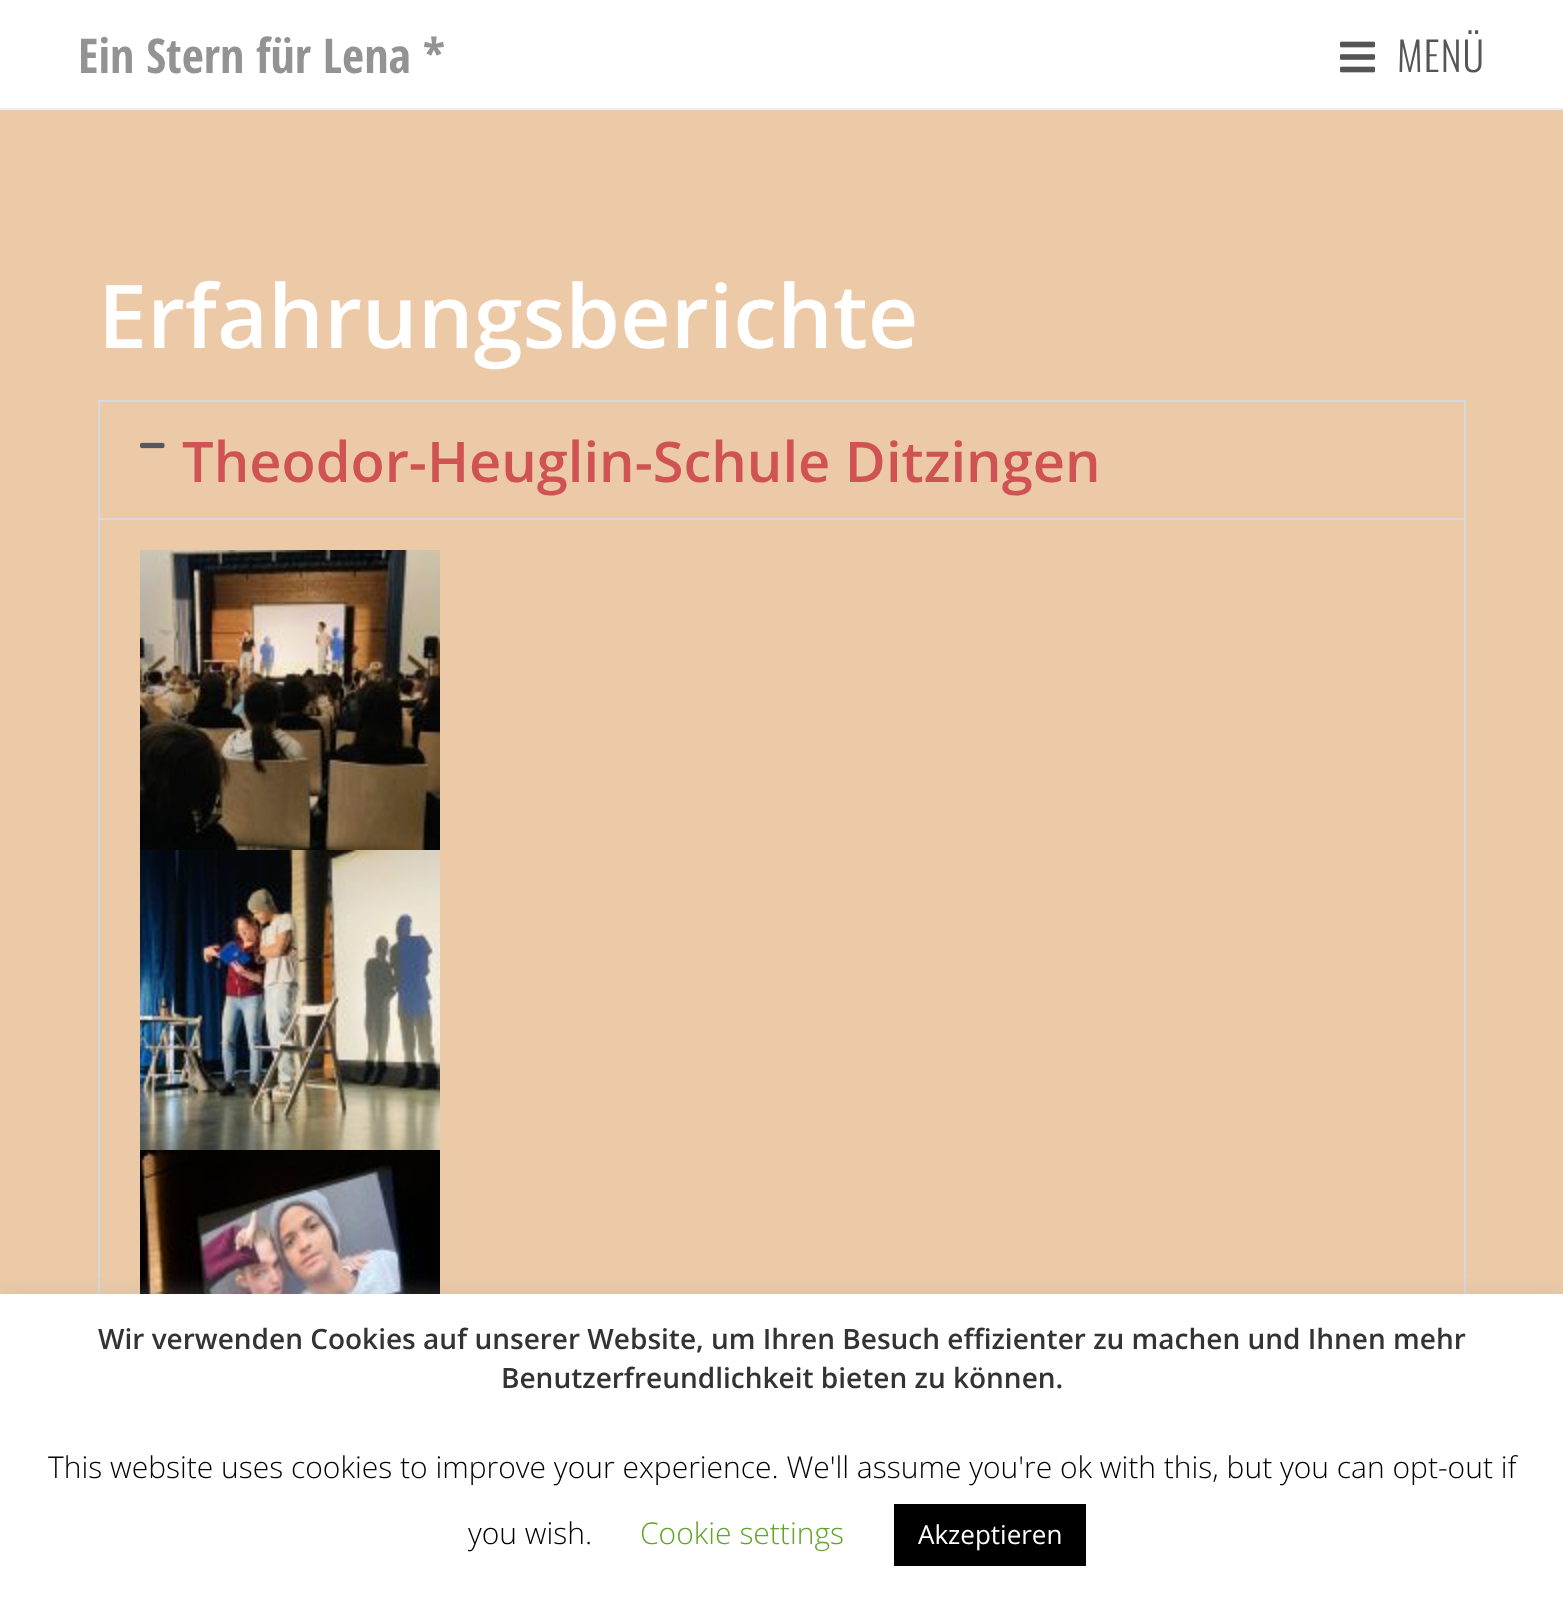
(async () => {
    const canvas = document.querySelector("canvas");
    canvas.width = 1563;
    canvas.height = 1599;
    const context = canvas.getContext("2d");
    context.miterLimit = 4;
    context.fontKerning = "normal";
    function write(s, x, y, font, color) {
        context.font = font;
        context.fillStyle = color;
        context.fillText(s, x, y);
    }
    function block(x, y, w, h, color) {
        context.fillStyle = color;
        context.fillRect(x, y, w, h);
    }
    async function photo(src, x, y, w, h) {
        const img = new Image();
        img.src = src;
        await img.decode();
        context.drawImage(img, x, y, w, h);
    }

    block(0, 0, 1563, 1599, "rgb(237, 202, 167)");
    block(0, 0, 1563, 108, "rgb(255, 255, 255)");
    block(0, 108, 1563, 2, "rgb(237, 237, 237)");
    write("Ein Stern für Lena *", 78, 73, "bold 48px Open Sans Condensed", "rgb(147, 147, 147)");
    await photo("media/1.png", 1340, 41, 35, 32);
    context.letterSpacing = "1px";
    write("MENÜ", 1397, 72, "300 40px Oswald", "rgb(85, 85, 85)");
    context.letterSpacing = "0px";
    write("Erfahrungsberichte", 98, 348, "600 88px Open Sans", "rgb(255, 255, 255)");
    context.strokeStyle = "rgb(213, 216, 220)";
    context.lineWidth = 2;
    context.strokeRect(99, 401, 1366, 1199);
    await photo("media/2.png", 140, 442, 25, 7);
    write("Theodor-Heuglin-Schule Ditzingen", 182, 482, "600 56px Open Sans", "rgb(207, 83, 83)");
    block(100, 518, 1364, 2, "rgb(213, 216, 220)");
    await photo("media/3.png", 140, 550, 300, 300);
    await photo("media/4.png", 140, 850, 300, 300);
    await photo("media/5.png", 140, 1150, 300, 144);
    context.fillStyle = "rgba(172, 171, 171, 0.3)";
    context.filter = "blur(10px)";
    context.beginPath();
    context.rect(0, 1292, 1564, 306);
    context.fill();
    context.filter = "none";
    block(0, 1294, 1563, 305, "rgb(255, 255, 255)");
    write("Wir verwenden Cookies auf unserer Website, um Ihren Besuch effizienter zu machen und Ihnen mehr", 98, 1349, "600 28px Open Sans", "rgb(51, 51, 51)");
    write("Benutzerfreundlichkeit bieten zu können.", 501, 1388, "600 28px Open Sans", "rgb(51, 51, 51)");
    write("This website uses cookies to improve your experience. We'll assume you're ok with this, but you can opt-out if", 48, 1478, "300 30px Open Sans", "rgb(0, 0, 0)");
    write("you wish.", 468, 1544, "300 30px Open Sans", "rgb(0, 0, 0)");
    write("Cookie settings", 640, 1544, "300 30px Open Sans", "rgb(98, 163, 41)");
    block(894, 1504, 192, 62, "rgb(0, 0, 0)");
    write("Akzeptieren", 918, 1544, "26px Open Sans", "rgb(255, 255, 255)");
})();
